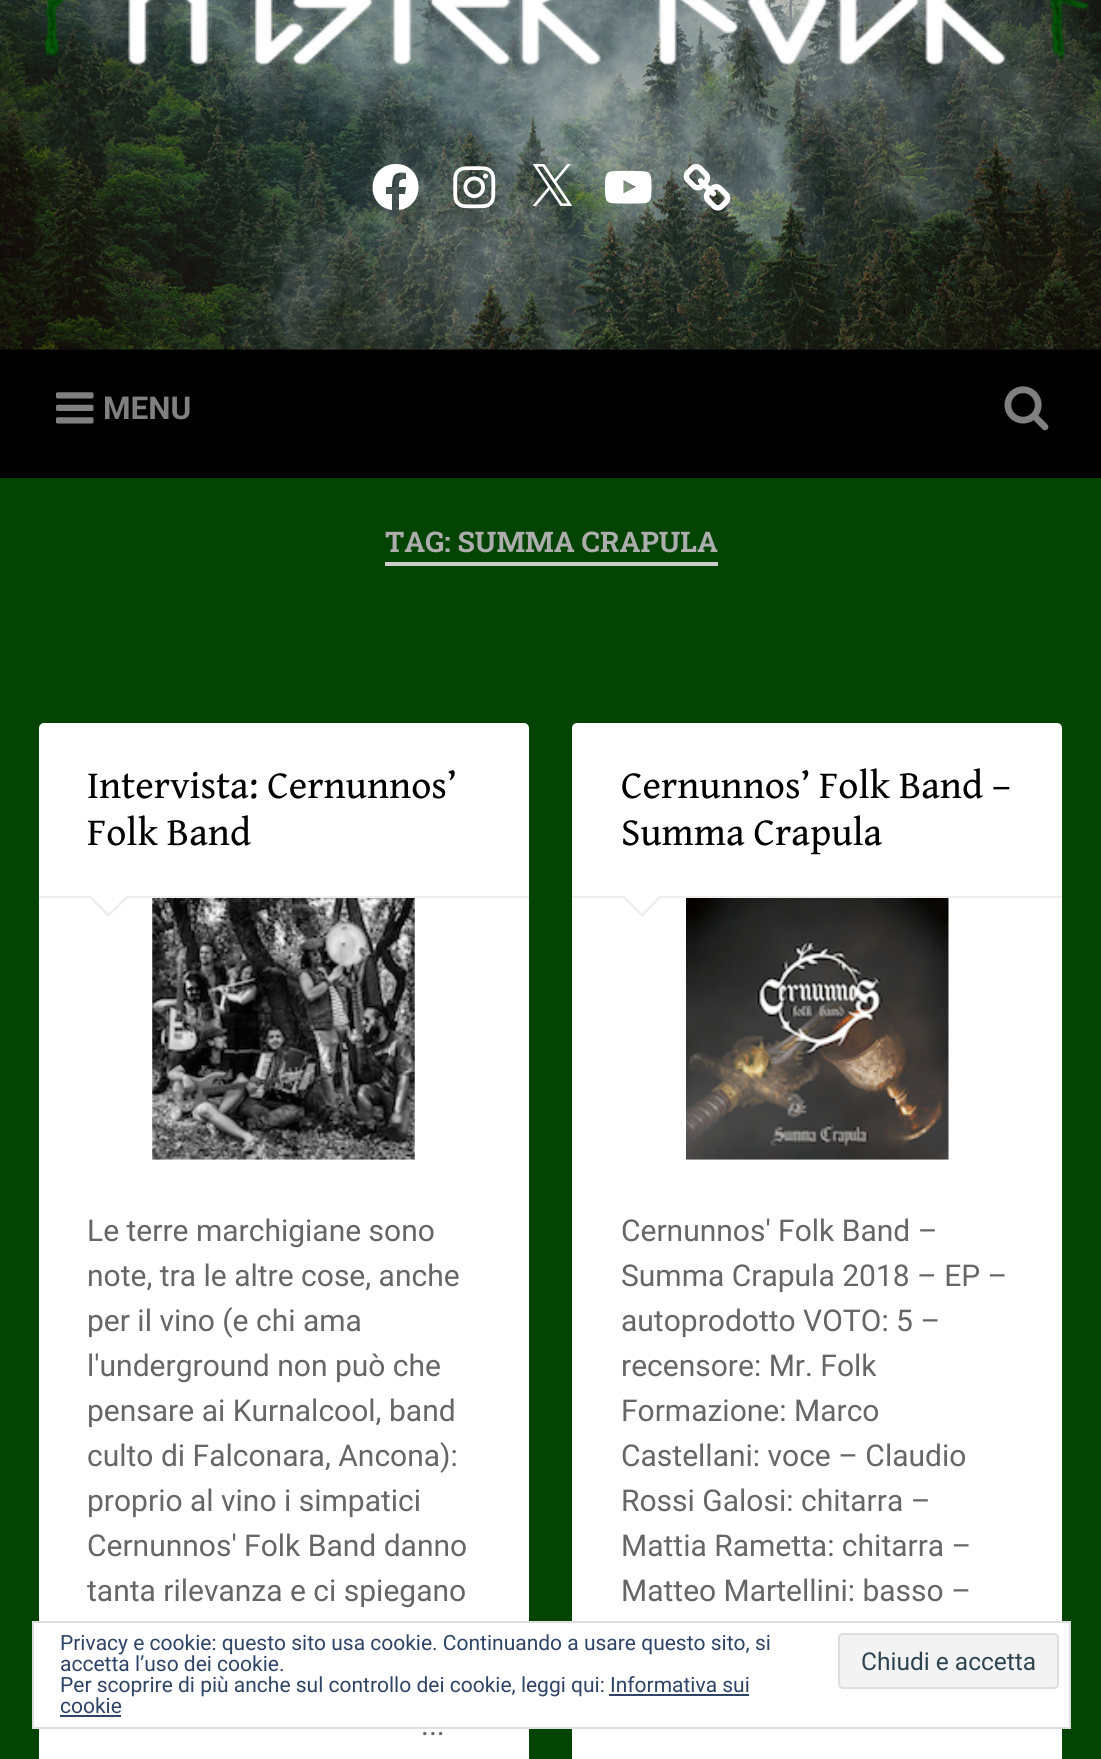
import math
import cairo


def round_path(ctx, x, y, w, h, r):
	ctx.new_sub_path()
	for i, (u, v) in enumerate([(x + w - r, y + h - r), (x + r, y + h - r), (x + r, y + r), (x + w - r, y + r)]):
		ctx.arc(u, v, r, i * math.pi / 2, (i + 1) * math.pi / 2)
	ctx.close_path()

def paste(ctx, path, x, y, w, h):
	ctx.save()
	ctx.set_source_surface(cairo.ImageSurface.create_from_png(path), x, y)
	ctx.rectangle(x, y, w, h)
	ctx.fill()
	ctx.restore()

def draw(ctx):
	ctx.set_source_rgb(0.012, 0.267, 0.012)
	ctx.paint()
	ctx.set_source_rgb(0.027, 0.027, 0.027)
	ctx.rectangle(0, 349, 1101, 1)
	ctx.fill()
	paste(ctx, 'media/1.png', 0, 0, 1101, 350)
	paste(ctx, 'media/2.png', 44, 0, 1045, 67)
	ctx.set_source_rgb(1, 1, 1)
	ctx.new_path()
	ctx.move_to(396, 164)
	ctx.curve_to(367, 164, 364, 206, 392, 210)
	ctx.line_to(392, 194)
	ctx.line_to(386, 194)
	ctx.line_to(386, 187)
	ctx.line_to(392, 187)
	ctx.curve_to(392, 176, 394, 171, 406, 173)
	ctx.line_to(406, 179)
	ctx.curve_to(399, 179, 399, 181, 399, 187)
	ctx.line_to(406, 187)
	ctx.line_to(405, 194)
	ctx.line_to(399, 194)
	ctx.line_to(399, 210)
	ctx.curve_to(427, 206, 424, 164, 396, 164)
	ctx.close_path()
	ctx.fill()
	paste(ctx, 'media/3.png', 453, 166, 43, 43)
	paste(ctx, 'media/4.png', 532, 163, 41, 43)
	paste(ctx, 'media/5.png', 604, 170, 48, 34)
	paste(ctx, 'media/6.png', 683, 163, 48, 48)
	ctx.set_source_rgb(0, 0, 0)
	ctx.rectangle(0, 350, 1101, 128)
	ctx.fill()
	paste(ctx, 'media/7.png', 56, 392, 38, 32)
	ctx.select_font_face('Roboto', cairo.FONT_SLANT_NORMAL, cairo.FONT_WEIGHT_BOLD)
	ctx.set_font_size(31.5)
	ctx.set_source_rgb(0.502, 0.502, 0.502)
	ctx.move_to(103, 419)
	ctx.show_text('MENU')
	paste(ctx, 'media/8.png', 1004, 386, 45, 45)
	ctx.set_source_rgb(0.8, 0.8, 0.8)
	ctx.rectangle(385, 562, 333, 4)
	ctx.fill()
	ctx.select_font_face('Roboto Slab', cairo.FONT_SLANT_NORMAL, cairo.FONT_WEIGHT_BOLD)
	ctx.set_font_size(28.4)
	ctx.set_source_rgb(0.678, 0.678, 0.678)
	ctx.move_to(385, 552)
	ctx.show_text('TAG: SUMMA CRAPULA')
	ctx.set_source_rgb(1, 1, 1)
	round_path(ctx, 39, 723, 490, 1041, 5)
	ctx.fill()
	ctx.set_source_rgb(0.933, 0.933, 0.933)
	ctx.rectangle(39, 896, 490, 2)
	ctx.fill()
	ctx.select_font_face('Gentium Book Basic')
	ctx.set_font_size(39.4)
	ctx.set_source_rgb(0, 0, 0)
	ctx.move_to(87, 798)
	ctx.show_text('Intervista: Cernunnos’')
	ctx.move_to(87, 845)
	ctx.show_text('Folk Band')
	ctx.set_source_rgb(0.933, 0.933, 0.933)
	ctx.new_path()
	ctx.move_to(88, 896)
	ctx.line_to(130, 896)
	ctx.line_to(108, 917)
	ctx.close_path()
	ctx.fill()
	ctx.set_source_rgb(1, 1, 1)
	ctx.new_path()
	ctx.move_to(89, 894)
	ctx.line_to(128, 894)
	ctx.line_to(108.5, 913.5)
	ctx.close_path()
	ctx.fill()
	paste(ctx, 'media/9.png', 152, 898, 263, 262)
	ctx.select_font_face('Roboto')
	ctx.set_font_size(30)
	ctx.set_source_rgb(0.4, 0.4, 0.4)
	for x, y, s in [
		(87, 1241, 'Le terre marchigiane sono'),
		(87, 1286, 'note, tra le altre cose, anche'),
		(87, 1331, 'per il vino (e chi ama'),
		(87, 1376, 'l\'underground non può che'),
		(87, 1421, 'pensare ai Kurnalcool, band'),
		(87, 1466, 'culto di Falconara, Ancona):'),
		(87, 1511, 'proprio al vino i simpatici'),
		(87, 1556, 'Cernunnos\' Folk Band danno'),
		(87, 1601, 'tanta rilevanza e ci spiegano'),
		(421, 1735, '...'),
	]:
		ctx.move_to(x, y)
		ctx.show_text(s)
	ctx.set_source_rgb(1, 1, 1)
	round_path(ctx, 572, 723, 490, 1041, 5)
	ctx.fill()
	ctx.set_source_rgb(0.933, 0.933, 0.933)
	ctx.rectangle(572, 896, 490, 2)
	ctx.fill()
	ctx.select_font_face('Gentium Book Basic')
	ctx.set_font_size(39.4)
	ctx.set_source_rgb(0, 0, 0)
	ctx.move_to(621, 798)
	ctx.show_text('Cernunnos’ Folk Band –')
	ctx.move_to(621, 845)
	ctx.show_text('Summa Crapula')
	ctx.set_source_rgb(0.933, 0.933, 0.933)
	ctx.new_path()
	ctx.move_to(621, 896)
	ctx.line_to(663, 896)
	ctx.line_to(642, 917)
	ctx.close_path()
	ctx.fill()
	ctx.set_source_rgb(1, 1, 1)
	ctx.new_path()
	ctx.move_to(623, 894)
	ctx.line_to(661.5, 894)
	ctx.line_to(642, 913.5)
	ctx.close_path()
	ctx.fill()
	paste(ctx, 'media/10.png', 686, 898, 263, 262)
	ctx.select_font_face('Roboto')
	ctx.set_font_size(30)
	ctx.set_source_rgb(0.4, 0.4, 0.4)
	for x, y, s in [
		(621, 1241, 'Cernunnos\' Folk Band –'),
		(621, 1286, 'Summa Crapula 2018 – EP –'),
		(621, 1331, 'autoprodotto VOTO: 5 –'),
		(621, 1376, 'recensore: Mr. Folk'),
		(621, 1421, 'Formazione: Marco'),
		(621, 1466, 'Castellani: voce – Claudio'),
		(621, 1511, 'Rossi Galosi: chitarra –'),
		(621, 1556, 'Mattia Rametta: chitarra –'),
		(621, 1601, 'Matteo Martellini: basso –'),
	]:
		ctx.move_to(x, y)
		ctx.show_text(s)
	ctx.set_source_rgb(1, 1, 1)
	ctx.rectangle(33, 1622, 1037, 106)
	ctx.fill_preserve()
	ctx.set_source_rgb(0.871, 0.871, 0.871)
	ctx.stroke()
	ctx.set_font_size(21)
	ctx.set_source_rgb(0.18, 0.267, 0.404)
	ctx.move_to(60, 1650)
	ctx.show_text('Privacy e cookie: questo sito usa cookie. Continuando a usare questo sito, si')
	ctx.move_to(60, 1671)
	ctx.show_text('accetta l’uso dei cookie.')
	ctx.set_source_rgb(0.953, 0.953, 0.953)
	round_path(ctx, 839, 1634, 219, 54, 4)
	ctx.fill_preserve()
	ctx.set_source_rgb(0.871, 0.871, 0.871)
	ctx.stroke()
	ctx.set_font_size(24.5)
	ctx.set_source_rgb(0.18, 0.267, 0.325)
	ctx.move_to(861, 1670)
	ctx.show_text('Chiudi e accetta')
	ctx.set_font_size(21)
	ctx.set_source_rgb(0.18, 0.267, 0.404)
	ctx.move_to(60, 1692)
	ctx.show_text('Per scoprire di più anche sul controllo dei cookie, leggi qui: Informativa sui')
	ctx.move_to(60, 1713)
	ctx.show_text('cookie')
	ctx.rectangle(609, 1694, 140, 2)
	ctx.fill()
	ctx.rectangle(60, 1715, 61, 2)
	ctx.fill()


surface = cairo.ImageSurface(cairo.FORMAT_RGB24, 1101, 1759)
ctx = cairo.Context(surface)
options = cairo.FontOptions()
options.set_hint_metrics(cairo.HINT_METRICS_OFF)
options.set_hint_style(cairo.HINT_STYLE_NONE)
ctx.set_font_options(options)
ctx.set_miter_limit(4)
draw(ctx)
surface.write_to_png('image.png')
